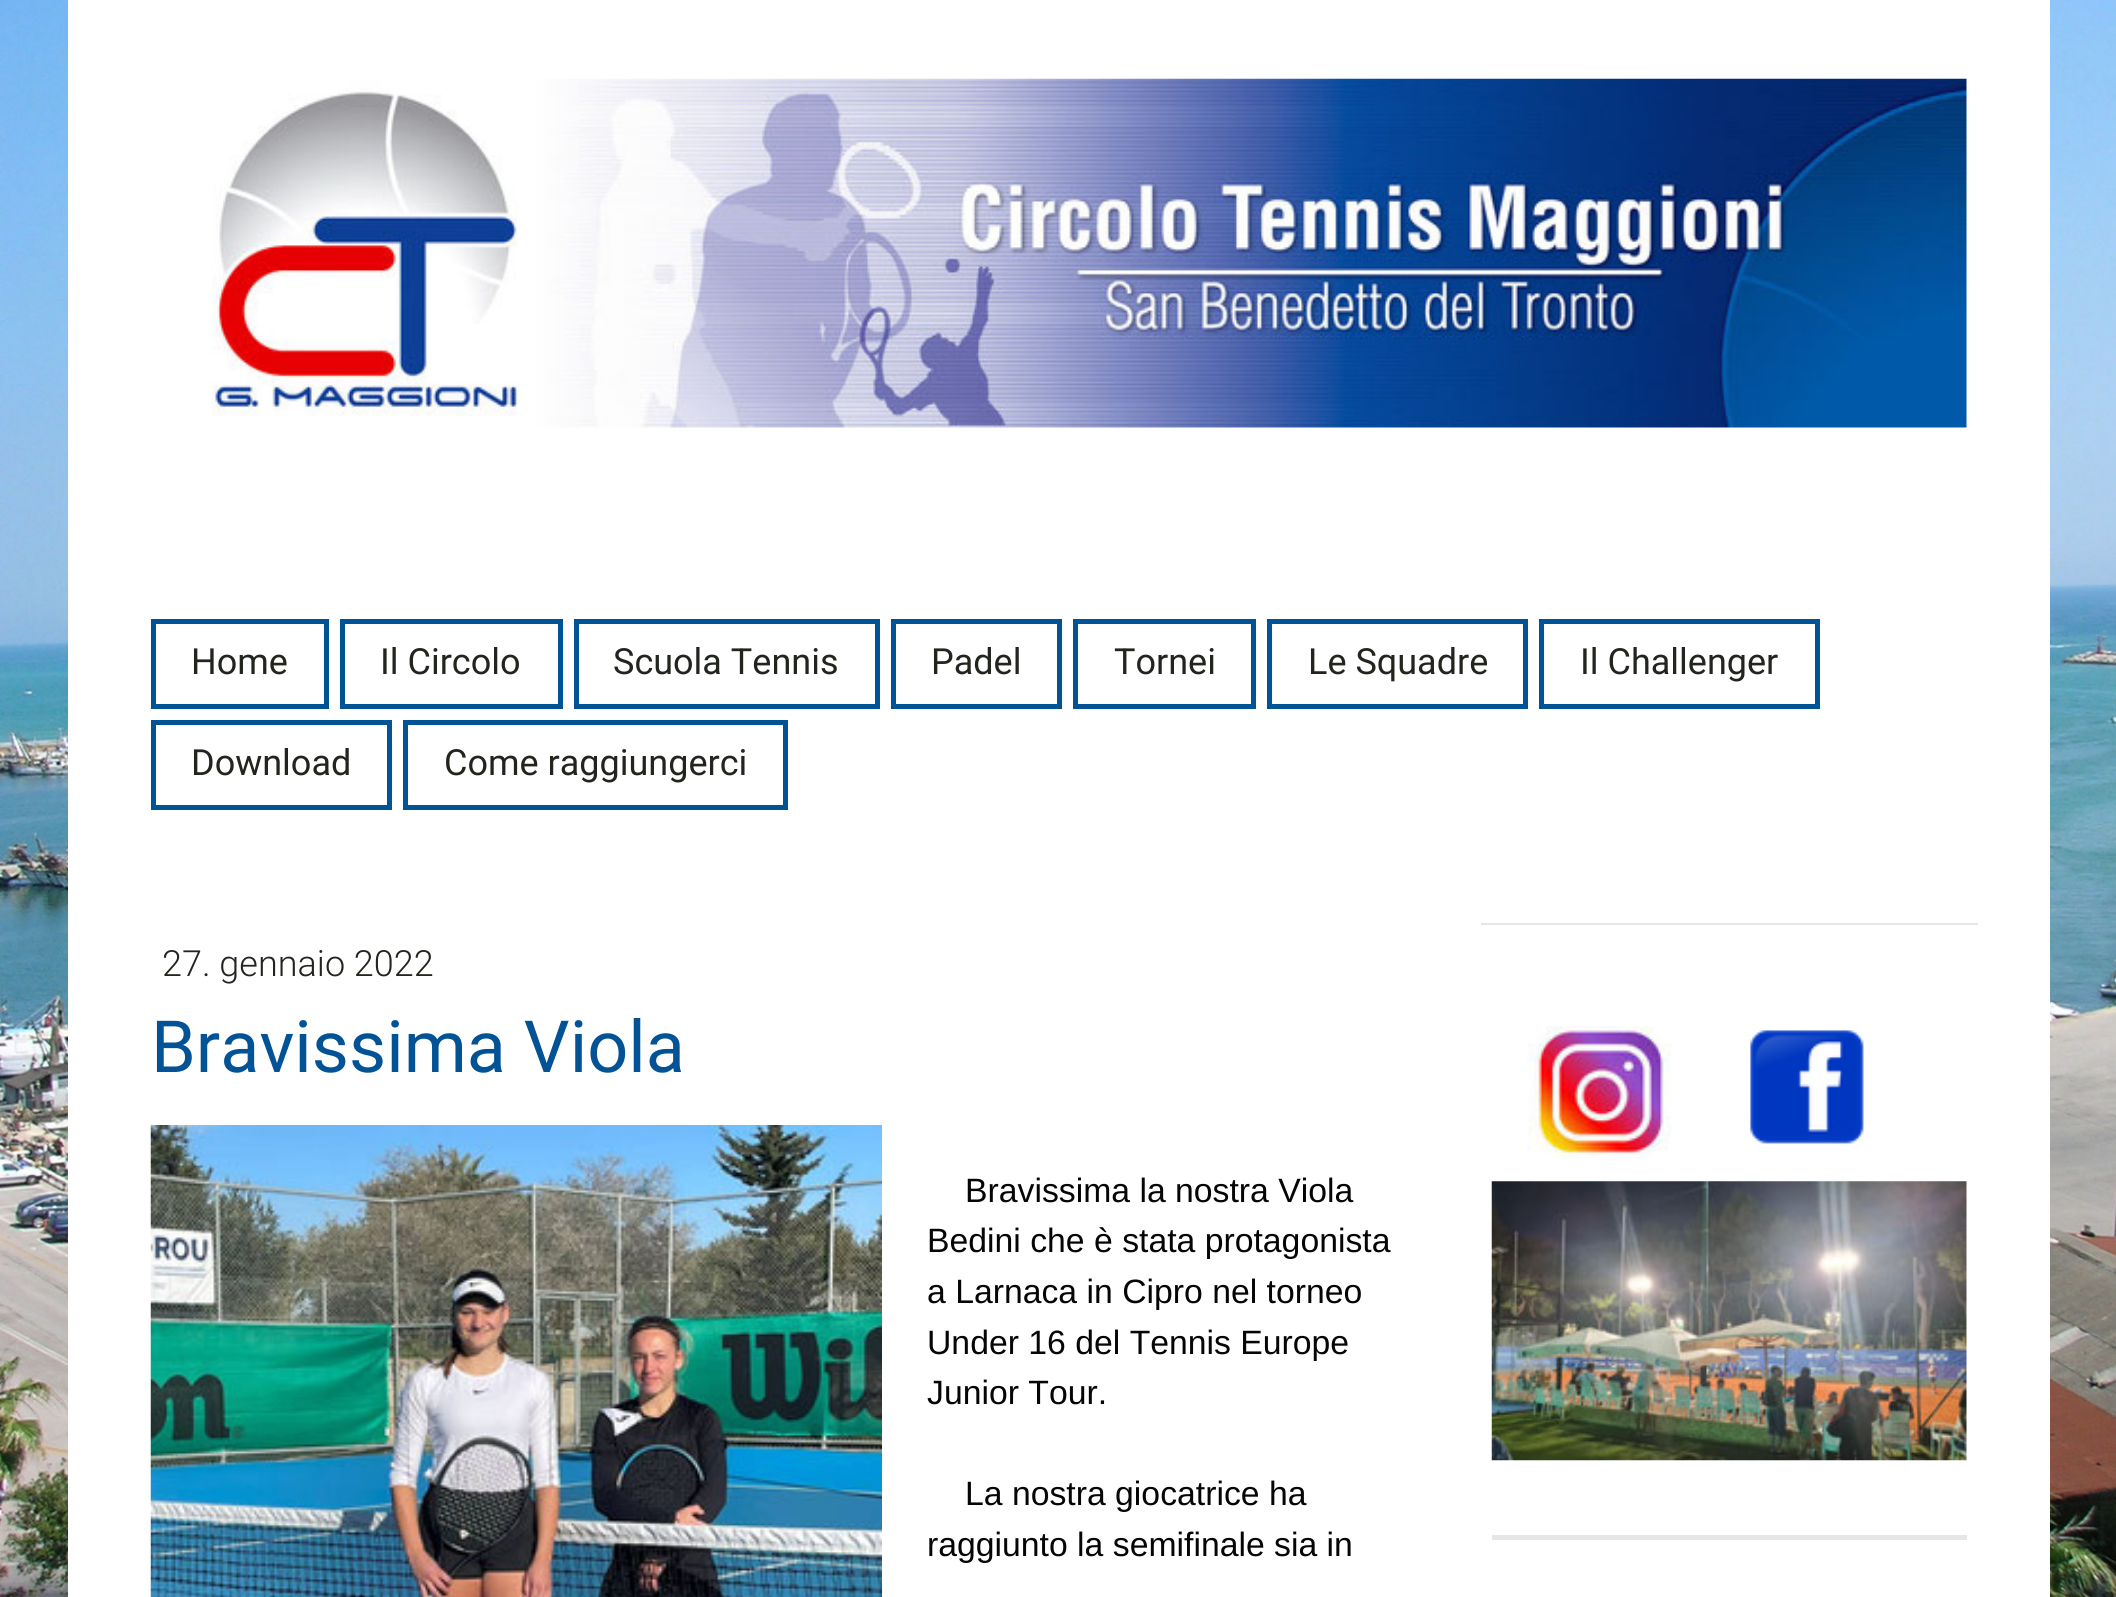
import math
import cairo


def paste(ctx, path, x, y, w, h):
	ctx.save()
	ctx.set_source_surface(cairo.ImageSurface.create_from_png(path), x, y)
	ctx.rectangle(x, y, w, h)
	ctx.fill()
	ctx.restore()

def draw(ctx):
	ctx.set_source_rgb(1, 1, 1)
	ctx.paint()
	paste(ctx, 'media/1.png', 0, 0, 2116, 1597)
	ctx.set_source_rgb(1, 1, 1)
	ctx.rectangle(68, 0, 1982, 1597)
	ctx.fill()
	paste(ctx, 'media/2.png', 211, 78, 1756, 350)
	ctx.rectangle(153.5, 621.5, 173, 85)
	ctx.set_source_rgb(0.008, 0.322, 0.588)
	ctx.set_line_width(5)
	ctx.stroke()
	ctx.select_font_face('Roboto')
	ctx.set_font_size(36)
	ctx.set_source_rgb(0.133, 0.145, 0.118)
	ctx.move_to(191, 674)
	ctx.show_text('Home')
	ctx.rectangle(342.5, 621.5, 218, 85)
	ctx.set_source_rgb(0.008, 0.322, 0.588)
	ctx.stroke()
	ctx.set_source_rgb(0.133, 0.145, 0.118)
	ctx.move_to(380, 674)
	ctx.show_text('Il Circolo')
	ctx.rectangle(576.5, 621.5, 301, 85)
	ctx.set_source_rgb(0.008, 0.322, 0.588)
	ctx.stroke()
	ctx.set_source_rgb(0.133, 0.145, 0.118)
	ctx.move_to(613, 674)
	ctx.show_text('Scuola Tennis')
	ctx.rectangle(893.5, 621.5, 166, 85)
	ctx.set_source_rgb(0.008, 0.322, 0.588)
	ctx.stroke()
	ctx.set_source_rgb(0.133, 0.145, 0.118)
	ctx.move_to(931, 674)
	ctx.show_text('Padel')
	ctx.rectangle(1075.5, 621.5, 178, 85)
	ctx.set_source_rgb(0.008, 0.322, 0.588)
	ctx.stroke()
	ctx.set_source_rgb(0.133, 0.145, 0.118)
	ctx.move_to(1114, 674)
	ctx.show_text('Tornei')
	ctx.rectangle(1269.5, 621.5, 256, 85)
	ctx.set_source_rgb(0.008, 0.322, 0.588)
	ctx.stroke()
	ctx.set_source_rgb(0.133, 0.145, 0.118)
	ctx.move_to(1308, 674)
	ctx.show_text('Le Squadre')
	ctx.rectangle(1541.5, 621.5, 276, 85)
	ctx.set_source_rgb(0.008, 0.322, 0.588)
	ctx.stroke()
	ctx.set_source_rgb(0.133, 0.145, 0.118)
	ctx.move_to(1580, 674)
	ctx.show_text('Il Challenger')
	ctx.rectangle(153.5, 722.5, 236, 85)
	ctx.set_source_rgb(0.008, 0.322, 0.588)
	ctx.stroke()
	ctx.set_source_rgb(0.133, 0.145, 0.118)
	ctx.move_to(191, 775)
	ctx.show_text('Download')
	ctx.rectangle(405.5, 722.5, 380, 85)
	ctx.set_source_rgb(0.008, 0.322, 0.588)
	ctx.stroke()
	ctx.set_source_rgb(0.133, 0.145, 0.118)
	ctx.move_to(444, 775)
	ctx.show_text('Come raggiungerci')
	ctx.select_font_face('Roboto Light')
	ctx.move_to(162, 976)
	ctx.show_text('27. gennaio 2022')
	ctx.select_font_face('Roboto')
	ctx.set_font_size(72)
	ctx.set_source_rgb(0.008, 0.322, 0.588)
	ctx.move_to(151, 1072)
	ctx.show_text('Bravissima Viola')
	paste(ctx, 'media/3.png', 150, 1125, 732, 472)
	ctx.select_font_face('Liberation Sans')
	ctx.set_font_size(33.75)
	ctx.set_source_rgb(0.02, 0.02, 0.02)
	for x, y, s in [
		(965, 1202, 'Bravissima la nostra Viola'),
		(927, 1252, 'Bedini che è stata protagonista'),
		(927, 1303, 'a Larnaca in Cipro nel torneo'),
		(927, 1354, 'Under 16 del Tennis Europe'),
		(927, 1404, 'Junior Tour.'),
		(965, 1505, 'La nostra giocatrice ha'),
		(927, 1556, 'raggiunto la semifinale sia in'),
	]:
		ctx.move_to(x, y)
		ctx.show_text(s)
	ctx.set_source_rgb(0.902, 0.906, 0.894)
	ctx.rectangle(1481, 923, 497, 2)
	ctx.fill()
	paste(ctx, 'media/4.png', 1527, 1026, 146, 133)
	paste(ctx, 'media/5.png', 1750, 1030, 114, 114)
	paste(ctx, 'media/6.png', 1491, 1181, 476, 280)
	ctx.rectangle(1492, 1535, 475, 5)
	ctx.fill()


surface = cairo.ImageSurface(cairo.FORMAT_RGB24, 2116, 1597)
ctx = cairo.Context(surface)
options = cairo.FontOptions()
options.set_hint_metrics(cairo.HINT_METRICS_OFF)
options.set_hint_style(cairo.HINT_STYLE_NONE)
ctx.set_font_options(options)
ctx.set_miter_limit(4)
draw(ctx)
surface.write_to_png('image.png')
